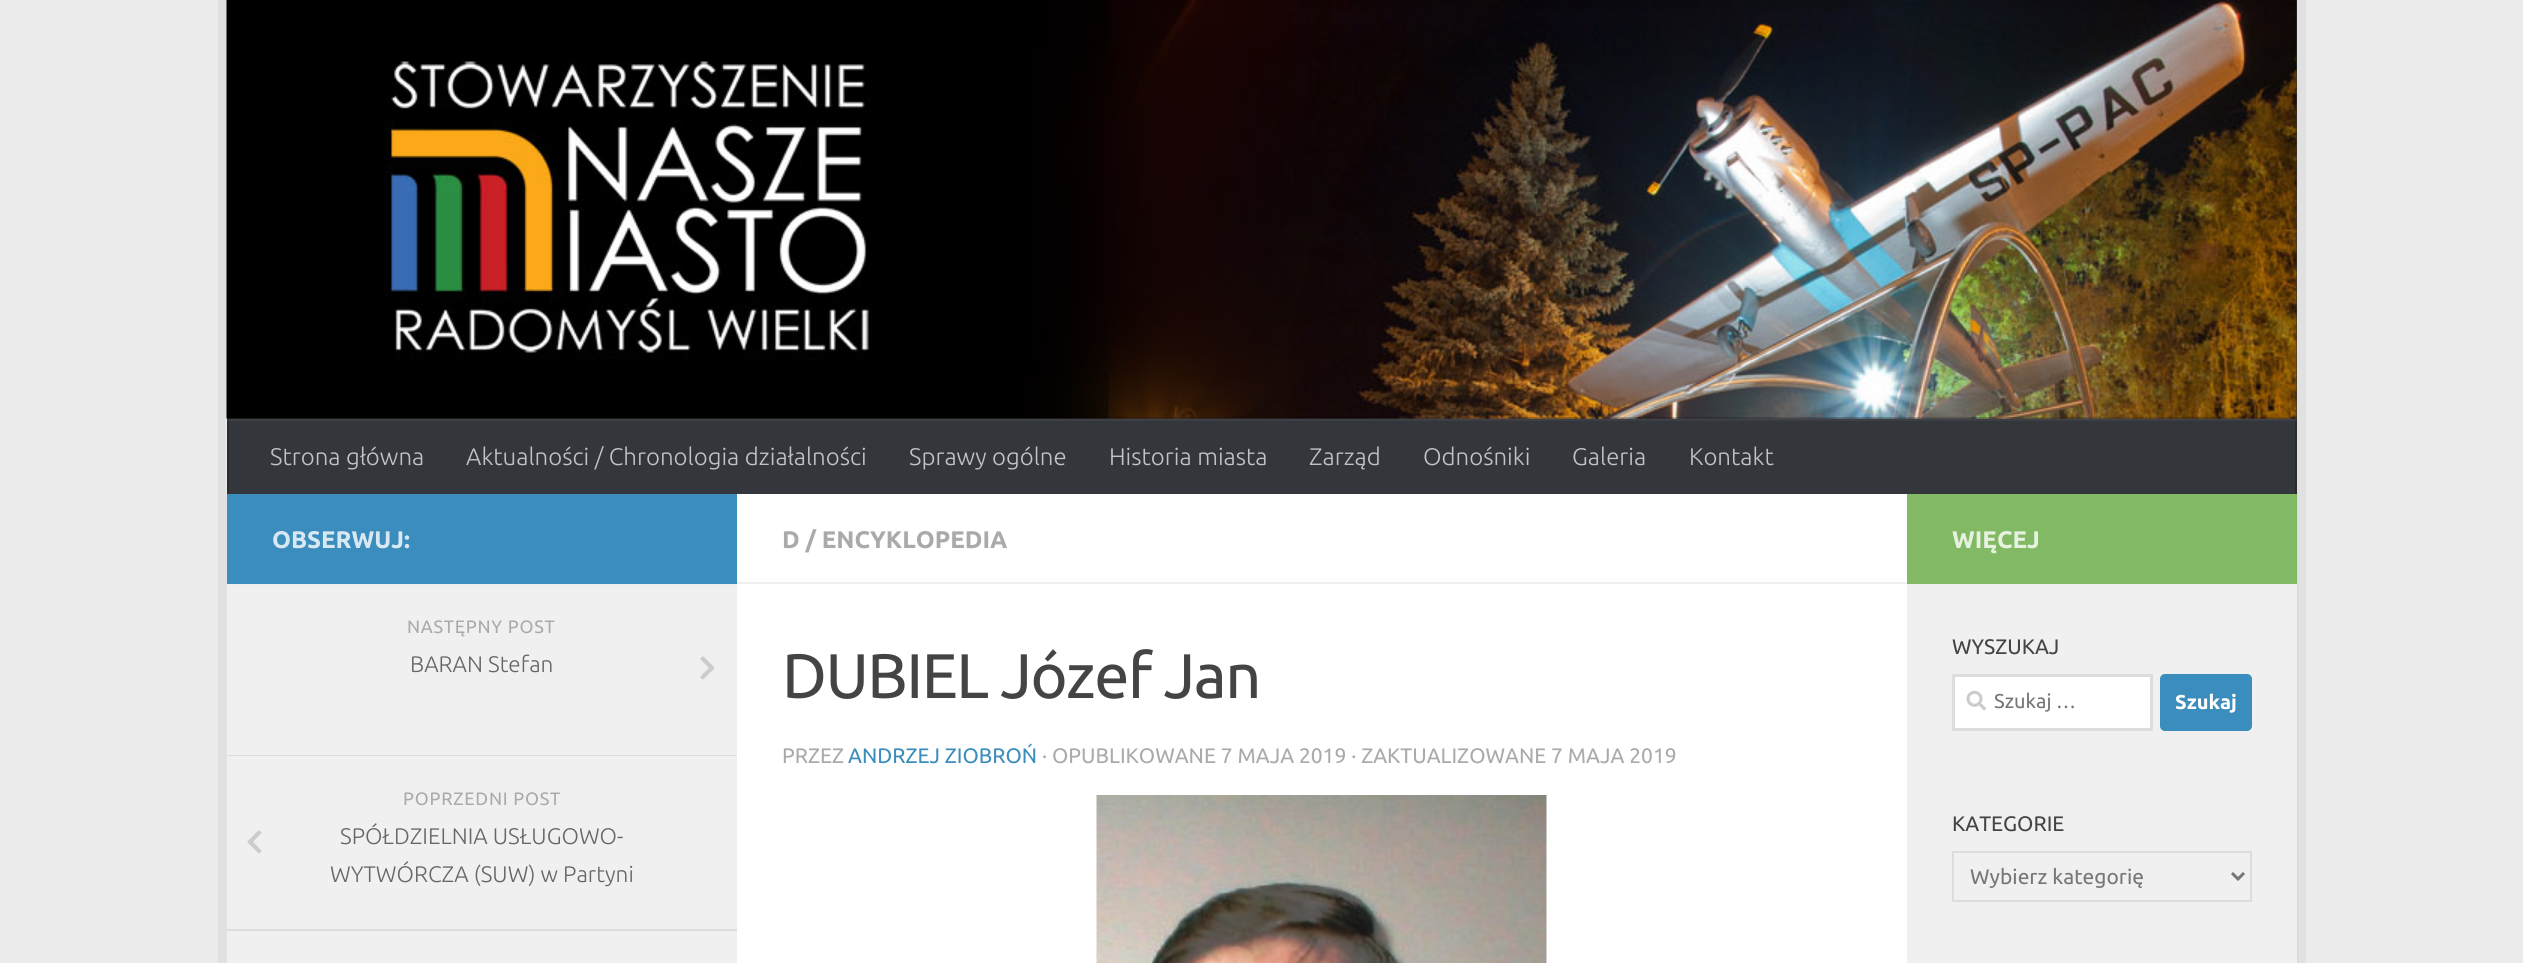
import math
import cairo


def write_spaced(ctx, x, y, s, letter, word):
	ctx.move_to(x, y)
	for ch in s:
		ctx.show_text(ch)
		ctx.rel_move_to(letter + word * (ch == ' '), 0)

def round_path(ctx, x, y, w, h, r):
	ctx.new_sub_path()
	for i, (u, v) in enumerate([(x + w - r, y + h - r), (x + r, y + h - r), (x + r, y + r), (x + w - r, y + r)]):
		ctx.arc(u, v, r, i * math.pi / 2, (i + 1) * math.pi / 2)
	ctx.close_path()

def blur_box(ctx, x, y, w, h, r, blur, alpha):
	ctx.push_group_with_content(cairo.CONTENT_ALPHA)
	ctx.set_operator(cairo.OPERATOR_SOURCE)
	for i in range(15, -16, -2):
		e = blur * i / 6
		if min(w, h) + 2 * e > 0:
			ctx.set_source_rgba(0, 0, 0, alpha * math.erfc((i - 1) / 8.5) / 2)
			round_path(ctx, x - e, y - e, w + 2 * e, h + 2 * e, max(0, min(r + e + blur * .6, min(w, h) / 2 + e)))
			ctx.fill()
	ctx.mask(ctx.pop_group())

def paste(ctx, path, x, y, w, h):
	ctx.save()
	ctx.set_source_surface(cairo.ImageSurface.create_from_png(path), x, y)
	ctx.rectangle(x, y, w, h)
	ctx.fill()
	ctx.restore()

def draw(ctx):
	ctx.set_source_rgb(0.918, 0.918, 0.918)
	ctx.paint()
	ctx.set_source_rgb(0.882, 0.882, 0.882)
	ctx.rectangle(218, 0, 8, 963)
	ctx.rectangle(2297, 0, 9, 963)
	ctx.fill()
	ctx.set_source_rgb(0.2, 0.212, 0.231)
	ctx.rectangle(227, 0, 2070, 419)
	ctx.fill()
	paste(ctx, 'media/1.png', 226, 0, 2071, 419)
	ctx.set_source_rgb(0, 0, 0)
	blur_box(ctx, 227, 495, 2070, 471, 0, 1, 0.1)
	ctx.set_source_rgba(0, 0, 0, 0.2)
	ctx.new_path()
	ctx.move_to(227, 417)
	ctx.line_to(227, 418)
	ctx.line_to(2296, 418)
	ctx.line_to(2296, 492)
	ctx.line_to(2297, 492)
	ctx.line_to(2297, 417)
	ctx.close_path()
	ctx.fill()
	ctx.set_source_rgb(0.2, 0.212, 0.231)
	ctx.rectangle(229, 419, 2066, 75)
	ctx.fill()
	ctx.set_source_rgb(0.161, 0.169, 0.184)
	ctx.rectangle(2295, 419, 2, 75)
	ctx.rectangle(227, 419, 2, 75)
	ctx.fill()
	ctx.set_source_rgba(1, 1, 1, 0.05)
	ctx.rectangle(227, 419, 2070, 2)
	ctx.fill()
	ctx.select_font_face('Ubuntu Light')
	ctx.set_font_size(24)
	ctx.set_source_rgb(0.761, 0.765, 0.769)
	for x, y, s in [
		(270, 465, 'Strona główna'),
		(466, 465, 'Aktualności / Chronologia działalności'),
		(909, 465, 'Sprawy ogólne'),
		(1109, 465, 'Historia miasta'),
		(1309, 465, 'Zarząd'),
		(1423, 465, 'Odnośniki'),
		(1572, 465, 'Galeria'),
		(1689, 465, 'Kontakt'),
	]:
		ctx.move_to(x, y)
		ctx.show_text(s)
	ctx.set_source_rgb(1, 1, 1)
	ctx.rectangle(737, 494, 1170, 469)
	ctx.fill()
	ctx.set_source_rgb(0.231, 0.553, 0.741)
	ctx.rectangle(227, 494, 510, 90)
	ctx.fill()
	ctx.select_font_face('Ubuntu', cairo.FONT_SLANT_NORMAL, cairo.FONT_WEIGHT_BOLD)
	ctx.set_source_rgb(0.847, 0.91, 0.949)
	ctx.move_to(272, 548)
	ctx.show_text('OBSERWUJ:')
	ctx.set_source_rgb(0.933, 0.933, 0.933)
	ctx.rectangle(227, 584, 510, 2)
	ctx.fill()
	ctx.set_source_rgb(0.941, 0.941, 0.941)
	ctx.rectangle(227, 586, 510, 377)
	ctx.fill()
	ctx.set_source_rgb(0.867, 0.867, 0.867)
	ctx.rectangle(227, 755, 510, 1)
	ctx.fill()
	ctx.select_font_face('Ubuntu')
	ctx.set_font_size(18)
	ctx.set_source_rgb(0.667, 0.667, 0.667)
	write_spaced(ctx, 407, 633, 'NASTĘPNY POST', 0.75, 0)
	ctx.select_font_face('Ubuntu Light')
	ctx.set_font_size(22.5)
	ctx.set_source_rgb(0.4, 0.4, 0.4)
	ctx.move_to(410, 672)
	ctx.show_text('BARAN Stefan')
	paste(ctx, 'media/2.png', 700, 656, 15, 24)
	ctx.set_source_rgb(0.867, 0.867, 0.867)
	ctx.rectangle(227, 929, 510, 2)
	ctx.fill()
	ctx.select_font_face('Ubuntu')
	ctx.set_font_size(18)
	ctx.set_source_rgb(0.667, 0.667, 0.667)
	write_spaced(ctx, 403, 805, 'POPRZEDNI POST', 0.75, 0)
	paste(ctx, 'media/3.png', 247, 830, 15, 24)
	ctx.select_font_face('Ubuntu Light')
	ctx.set_font_size(22.5)
	ctx.set_source_rgb(0.4, 0.4, 0.4)
	ctx.move_to(340, 844)
	ctx.show_text('SPÓŁDZIELNIA USŁUGOWO-')
	ctx.move_to(330, 882)
	ctx.show_text('WYTWÓRCZA (SUW) w Partyni')
	ctx.set_source_rgb(0.933, 0.933, 0.933)
	ctx.rectangle(737, 582, 1170, 2)
	ctx.fill()
	ctx.select_font_face('Ubuntu', cairo.FONT_SLANT_NORMAL, cairo.FONT_WEIGHT_BOLD)
	ctx.set_font_size(24)
	ctx.set_source_rgb(0.667, 0.667, 0.667)
	ctx.move_to(782, 548)
	ctx.show_text('D / ENCYKLOPEDIA')
	ctx.select_font_face('Ubuntu')
	ctx.set_font_size(63)
	ctx.set_source_rgb(0.267, 0.267, 0.267)
	write_spaced(ctx, 782, 698, 'DUBIEL Józef Jan', -1.5, 0)
	ctx.set_font_size(21)
	ctx.set_source_rgb(0.667, 0.667, 0.667)
	ctx.move_to(782, 763)
	ctx.show_text('PRZEZ')
	ctx.set_source_rgb(0.231, 0.553, 0.741)
	ctx.move_to(848, 763)
	ctx.show_text('ANDRZEJ ZIOBROŃ')
	ctx.set_source_rgb(0.667, 0.667, 0.667)
	ctx.move_to(1042, 763)
	ctx.show_text('· OPUBLIKOWANE 7 MAJA 2019 · ZAKTUALIZOWANE 7 MAJA 2019')
	paste(ctx, 'media/4.png', 1096, 795, 451, 168)
	ctx.set_source_rgb(0.51, 0.725, 0.396)
	ctx.rectangle(1907, 494, 390, 90)
	ctx.fill()
	ctx.select_font_face('Ubuntu', cairo.FONT_SLANT_NORMAL, cairo.FONT_WEIGHT_BOLD)
	ctx.set_font_size(24)
	ctx.set_source_rgb(0.902, 0.945, 0.878)
	ctx.move_to(1952, 548)
	ctx.show_text('WIĘCEJ')
	ctx.set_source_rgb(0.941, 0.941, 0.941)
	ctx.rectangle(1907, 584, 390, 379)
	ctx.fill()
	ctx.select_font_face('Ubuntu')
	ctx.set_font_size(21)
	ctx.set_source_rgb(0.267, 0.267, 0.267)
	ctx.move_to(1952, 654)
	ctx.show_text('WYSZUKAJ')
	ctx.set_source_rgb(1, 1, 1)
	ctx.rectangle(1953.5, 675.5, 198, 54)
	ctx.fill_preserve()
	ctx.set_source_rgb(0.867, 0.867, 0.867)
	ctx.set_line_width(3)
	ctx.stroke()
	paste(ctx, 'media/5.png', 1966, 690, 21, 21)
	ctx.set_font_size(20)
	ctx.set_source_rgb(0.467, 0.467, 0.467)
	ctx.move_to(1994, 708)
	ctx.show_text('Szukaj …')
	ctx.set_source_rgb(0.231, 0.553, 0.741)
	round_path(ctx, 2160, 674, 92, 57, 5)
	ctx.fill()
	ctx.select_font_face('Ubuntu', cairo.FONT_SLANT_NORMAL, cairo.FONT_WEIGHT_BOLD)
	ctx.set_source_rgb(1, 1, 1)
	ctx.move_to(2175, 709)
	ctx.show_text('Szukaj')
	ctx.select_font_face('Ubuntu')
	ctx.set_font_size(21)
	ctx.set_source_rgb(0.267, 0.267, 0.267)
	ctx.move_to(1952, 831)
	ctx.show_text('KATEGORIE')
	ctx.rectangle(1953, 852, 298, 49)
	ctx.set_source_rgb(0.867, 0.867, 0.867)
	ctx.set_line_width(2)
	ctx.stroke()
	ctx.new_path()
	ctx.move_to(2232, 873)
	ctx.line_to(2238, 879)
	ctx.line_to(2244, 873)
	ctx.set_source_rgb(0.467, 0.467, 0.467)
	ctx.set_line_width(3)
	ctx.stroke()
	ctx.move_to(1970, 884)
	ctx.show_text('Wybierz kategorię')


surface = cairo.ImageSurface(cairo.FORMAT_RGB24, 2523, 963)
ctx = cairo.Context(surface)
options = cairo.FontOptions()
options.set_hint_metrics(cairo.HINT_METRICS_OFF)
options.set_hint_style(cairo.HINT_STYLE_NONE)
ctx.set_font_options(options)
ctx.set_miter_limit(4)
draw(ctx)
surface.write_to_png('image.png')
